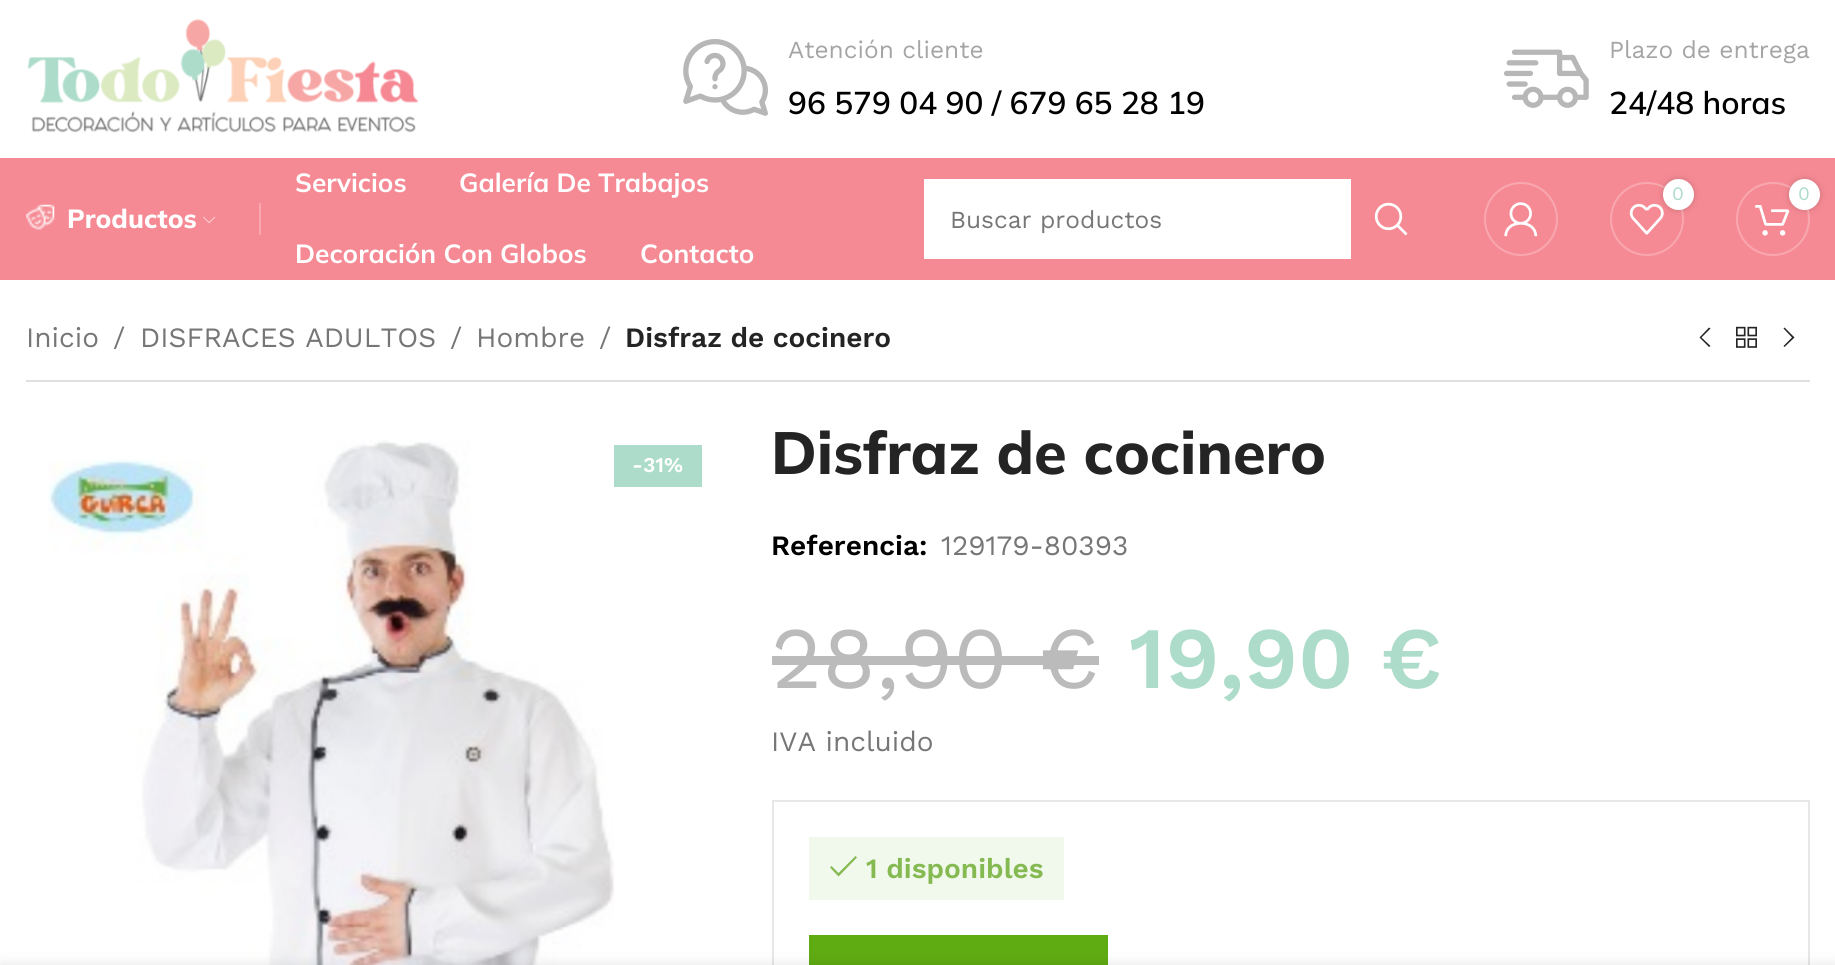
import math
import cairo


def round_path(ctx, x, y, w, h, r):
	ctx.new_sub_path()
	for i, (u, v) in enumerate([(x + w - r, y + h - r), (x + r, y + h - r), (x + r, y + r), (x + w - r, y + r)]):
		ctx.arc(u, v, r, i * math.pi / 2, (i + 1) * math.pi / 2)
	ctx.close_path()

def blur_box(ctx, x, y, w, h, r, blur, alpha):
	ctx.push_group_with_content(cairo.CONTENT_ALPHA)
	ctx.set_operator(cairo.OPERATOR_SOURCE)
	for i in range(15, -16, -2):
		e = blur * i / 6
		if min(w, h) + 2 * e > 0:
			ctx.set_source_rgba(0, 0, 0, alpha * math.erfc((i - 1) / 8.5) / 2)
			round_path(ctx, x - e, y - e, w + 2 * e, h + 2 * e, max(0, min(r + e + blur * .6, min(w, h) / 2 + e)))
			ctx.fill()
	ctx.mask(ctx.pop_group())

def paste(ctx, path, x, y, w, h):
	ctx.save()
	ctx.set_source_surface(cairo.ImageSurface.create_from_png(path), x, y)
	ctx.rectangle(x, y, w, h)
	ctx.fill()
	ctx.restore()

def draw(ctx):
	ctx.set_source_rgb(1, 1, 1)
	ctx.paint()
	paste(ctx, 'media/1.png', 27, 18, 392, 115)
	paste(ctx, 'media/2.png', 683, 39, 85, 77)
	ctx.select_font_face('Work Sans')
	ctx.set_font_size(24.5)
	ctx.set_source_rgb(0.647, 0.647, 0.647)
	ctx.move_to(788, 58)
	ctx.show_text('Atención cliente')
	ctx.select_font_face('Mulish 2 ExtraLight')
	ctx.set_font_size(31.5)
	ctx.set_source_rgb(0, 0, 0)
	ctx.move_to(788, 114)
	ctx.show_text('96 579 04 90 / 679 65 28 19')
	paste(ctx, 'media/3.png', 1504, 49, 85, 59)
	ctx.select_font_face('Work Sans')
	ctx.set_font_size(24.5)
	ctx.set_source_rgb(0.647, 0.647, 0.647)
	ctx.move_to(1609, 58)
	ctx.show_text('Plazo de entrega')
	ctx.select_font_face('Mulish 2 ExtraLight')
	ctx.set_font_size(31.5)
	ctx.set_source_rgb(0, 0, 0)
	ctx.move_to(1609, 114)
	ctx.show_text('24/48 horas')
	ctx.set_source_rgb(0.961, 0.541, 0.58)
	ctx.rectangle(0, 158, 1835, 122)
	ctx.fill()
	paste(ctx, 'media/4.png', 26, 204, 29, 26)
	ctx.select_font_face('Mulish ExtraLight')
	ctx.set_font_size(26.25)
	ctx.set_source_rgb(1, 1, 1)
	ctx.move_to(67, 228)
	ctx.show_text('Productos')
	paste(ctx, 'media/5.png', 203, 216, 13, 8)
	ctx.set_source_rgb(0.973, 0.655, 0.686)
	ctx.rectangle(259, 203, 2, 32)
	ctx.fill()
	ctx.select_font_face('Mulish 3 ExtraLight')
	ctx.set_source_rgb(1, 1, 1)
	for x, y, s in [
		(295, 192, 'Servicios'),
		(459, 192, 'Galería De Trabajos'),
		(295, 263, 'Decoración Con Globos'),
		(640, 263, 'Contacto'),
	]:
		ctx.move_to(x, y)
		ctx.show_text(s)
	ctx.new_path()
	ctx.arc(1521, 219, 36, 0, 2 * math.pi)
	ctx.set_source_rgb(0.973, 0.655, 0.686)
	ctx.stroke()
	paste(ctx, 'media/6.png', 1504, 202, 34, 35)
	ctx.arc(1647, 219, 36, 0, 2 * math.pi)
	ctx.stroke()
	paste(ctx, 'media/7.png', 1629, 203, 35, 32)
	ctx.set_source_rgb(0, 0, 0)
	blur_box(ctx, 1663, 179, 31, 31, 15.5, 3.5, 0.17)
	ctx.set_source_rgb(1, 1, 1)
	ctx.arc(1678.5, 194.5, 15.5, 0, 2 * math.pi)
	ctx.fill()
	ctx.select_font_face('Work Sans')
	ctx.set_font_size(19)
	ctx.set_source_rgb(0.678, 0.863, 0.792)
	ctx.move_to(1672, 200)
	ctx.show_text('0')
	ctx.new_path()
	ctx.arc(1773, 219, 36, 0, 2 * math.pi)
	ctx.set_source_rgb(0.973, 0.655, 0.686)
	ctx.stroke()
	paste(ctx, 'media/8.png', 1755, 205, 35, 31)
	ctx.set_source_rgb(0, 0, 0)
	blur_box(ctx, 1789, 179, 31, 31, 15.5, 3.5, 0.17)
	ctx.set_source_rgb(1, 1, 1)
	ctx.arc(1804.5, 194.5, 15.5, 0, 2 * math.pi)
	ctx.fill()
	ctx.set_source_rgb(0.678, 0.863, 0.792)
	ctx.move_to(1798, 200)
	ctx.show_text('0')
	ctx.set_source_rgb(1, 1, 1)
	ctx.rectangle(924, 179, 427, 80)
	ctx.fill()
	ctx.set_font_size(24.5)
	ctx.set_source_rgb(0.463, 0.463, 0.463)
	ctx.move_to(950, 228)
	ctx.show_text('Buscar productos')
	paste(ctx, 'media/9.png', 1374, 202, 34, 34)
	ctx.set_font_size(28)
	for x, y, s in [
		(26, 347, 'Inicio'),
		(113, 347, '/'),
		(140, 347, 'DISFRACES ADULTOS'),
		(450, 347, '/'),
		(476, 347, 'Hombre'),
		(599, 347, '/'),
	]:
		ctx.move_to(x, y)
		ctx.show_text(s)
	ctx.select_font_face('Work Sans SemiBold')
	ctx.set_source_rgb(0.141, 0.141, 0.141)
	ctx.move_to(625, 347)
	ctx.show_text('Disfraz de cocinero')
	ctx.new_path()
	ctx.move_to(1710.5, 328.5)
	ctx.line_to(1709, 327.5)
	ctx.line_to(1699.5, 337.5)
	ctx.line_to(1709, 347)
	ctx.line_to(1710.5, 346)
	ctx.line_to(1701.5, 337.5)
	ctx.close_path()
	ctx.fill()
	paste(ctx, 'media/10.png', 1736, 326, 21, 22)
	ctx.new_path()
	ctx.move_to(1783.5, 328.5)
	ctx.line_to(1792, 337.5)
	ctx.line_to(1783.5, 346)
	ctx.line_to(1784.5, 347)
	ctx.line_to(1794.5, 337.5)
	ctx.line_to(1784.5, 327.5)
	ctx.close_path()
	ctx.fill()
	ctx.set_source_rgb(0.878, 0.878, 0.878)
	ctx.rectangle(26, 380, 1784, 2)
	ctx.fill()
	paste(ctx, 'media/11.png', 48, 440, 566, 525)
	ctx.set_source_rgb(0.678, 0.863, 0.792)
	ctx.rectangle(614, 445, 88, 42)
	ctx.fill()
	ctx.set_font_size(21)
	ctx.set_source_rgb(1, 1, 1)
	ctx.move_to(632, 472)
	ctx.show_text('-31%')
	ctx.select_font_face('Mulish ExtraLight')
	ctx.set_font_size(59.5)
	ctx.set_source_rgb(0.141, 0.141, 0.141)
	ctx.move_to(771, 474)
	ctx.show_text('Disfraz de cocinero')
	ctx.select_font_face('Work Sans SemiBold')
	ctx.set_font_size(28)
	ctx.set_source_rgb(0, 0, 0)
	ctx.move_to(771, 555)
	ctx.show_text('Referencia:')
	ctx.select_font_face('Work Sans')
	ctx.set_source_rgb(0.463, 0.463, 0.463)
	ctx.move_to(941, 555)
	ctx.show_text('129179-80393')
	ctx.set_font_size(87.5)
	ctx.set_source_rgb(0.733, 0.733, 0.733)
	ctx.move_to(771, 688)
	ctx.show_text('28,90 €')
	ctx.rectangle(772, 656, 327, 9)
	ctx.fill()
	ctx.select_font_face('Work Sans SemiBold')
	ctx.set_source_rgb(0.678, 0.863, 0.792)
	ctx.move_to(1129, 688)
	ctx.show_text('19,90 €')
	ctx.select_font_face('Work Sans')
	ctx.set_font_size(28)
	ctx.set_source_rgb(0.463, 0.463, 0.463)
	ctx.move_to(771, 751)
	ctx.show_text('IVA incluido')
	ctx.rectangle(773, 801, 1036, 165)
	ctx.set_source_rgb(0.906, 0.906, 0.906)
	ctx.stroke()
	ctx.set_source_rgb(0.945, 0.969, 0.922)
	ctx.rectangle(809, 837, 255, 63)
	ctx.fill()
	ctx.set_source_rgb(0.522, 0.725, 0.318)
	ctx.new_path()
	ctx.move_to(857, 857.5)
	ctx.line_to(855.5, 856)
	ctx.line_to(838.5, 873)
	ctx.line_to(831.5, 866)
	ctx.line_to(830, 867.5)
	ctx.line_to(838.5, 876.5)
	ctx.close_path()
	ctx.fill()
	ctx.select_font_face('Work Sans SemiBold')
	ctx.move_to(866, 878)
	ctx.show_text('1 disponibles')
	ctx.set_source_rgb(0.373, 0.671, 0.071)
	ctx.rectangle(809, 935, 299, 30)
	ctx.fill()
	ctx.set_source_rgb(0, 0, 0)
	blur_box(ctx, 0, 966, 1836, 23, 0, 8, 0.12)


surface = cairo.ImageSurface(cairo.FORMAT_RGB24, 1835, 965)
ctx = cairo.Context(surface)
options = cairo.FontOptions()
options.set_hint_metrics(cairo.HINT_METRICS_OFF)
options.set_hint_style(cairo.HINT_STYLE_NONE)
ctx.set_font_options(options)
ctx.set_miter_limit(4)
draw(ctx)
surface.write_to_png('image.png')
